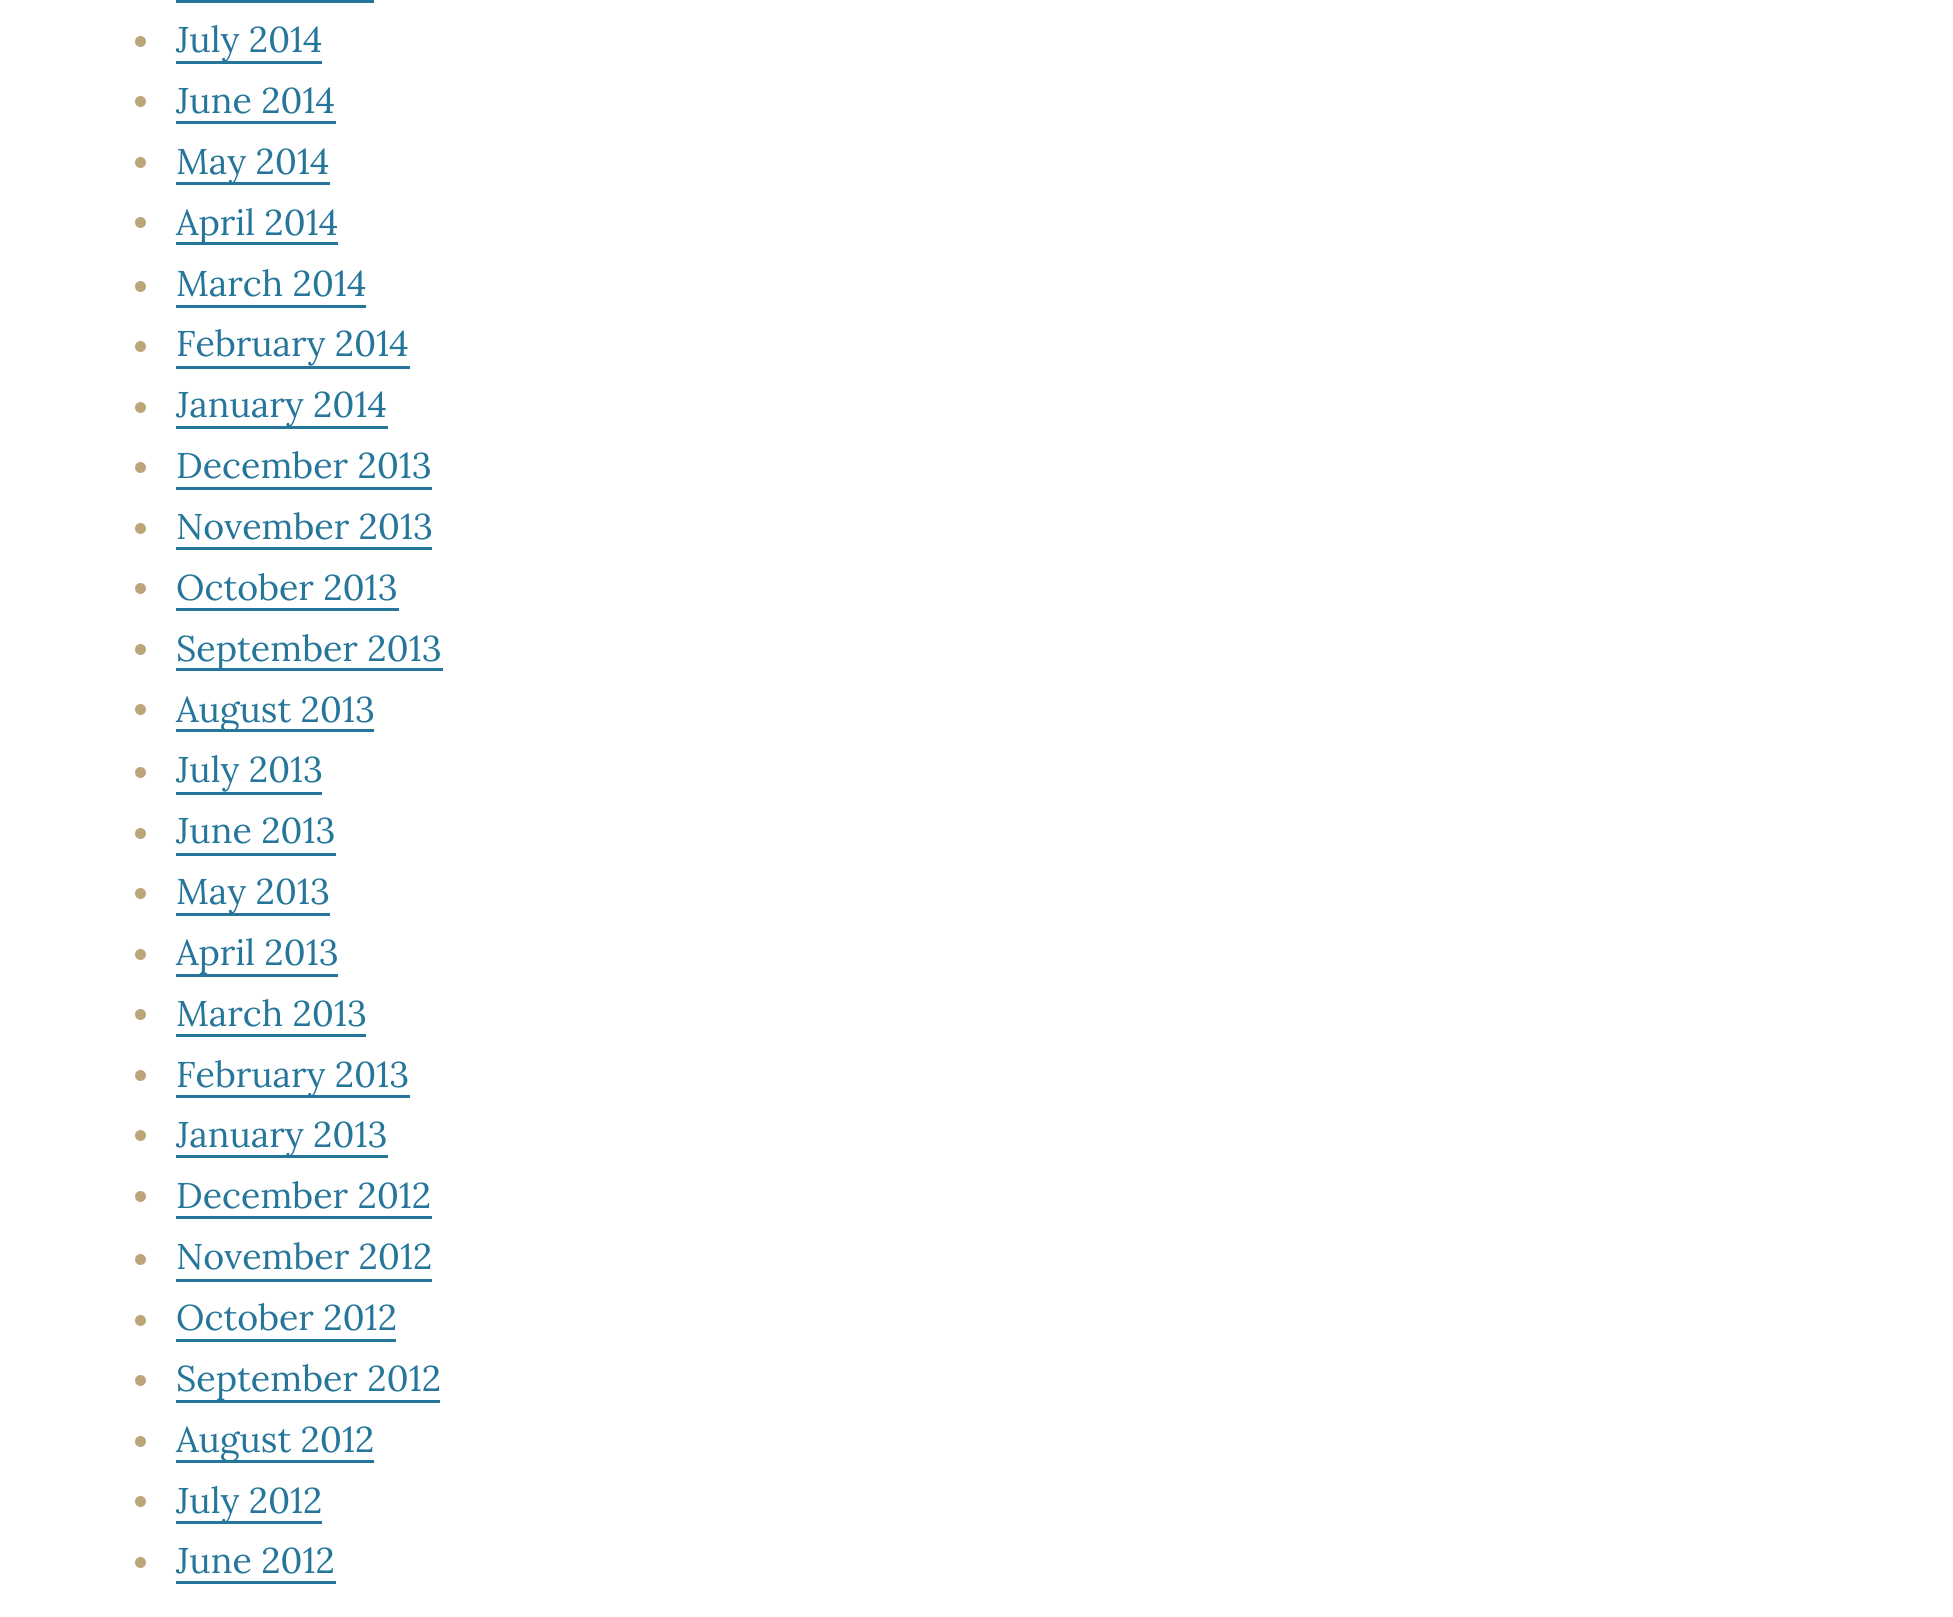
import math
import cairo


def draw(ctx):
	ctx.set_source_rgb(1, 1, 1)
	ctx.paint()
	ctx.set_source_rgb(0.149, 0.463, 0.608)
	ctx.rectangle(176, 0, 198, 3)
	ctx.fill()
	ctx.set_source_rgb(0.733, 0.647, 0.475)
	ctx.arc(140.5, 41.5, 5.5, 0, 2 * math.pi)
	ctx.fill()
	ctx.set_source_rgb(0.149, 0.463, 0.608)
	ctx.rectangle(176, 61, 146, 3)
	ctx.fill()
	ctx.select_font_face('Lora')
	ctx.set_font_size(35.75)
	ctx.move_to(176, 52)
	ctx.show_text('July 2014')
	ctx.set_source_rgb(0.733, 0.647, 0.475)
	ctx.new_path()
	ctx.arc(140.5, 101.5, 5.5, 0, 2 * math.pi)
	ctx.fill()
	ctx.set_source_rgb(0.149, 0.463, 0.608)
	ctx.move_to(176, 113)
	ctx.show_text('June 2014')
	ctx.rectangle(176, 121, 160, 3)
	ctx.fill()
	ctx.set_source_rgb(0.733, 0.647, 0.475)
	ctx.arc(140.5, 162.5, 5.5, 0, 2 * math.pi)
	ctx.fill()
	ctx.set_source_rgb(0.149, 0.463, 0.608)
	ctx.rectangle(176, 182, 154, 3)
	ctx.fill()
	ctx.move_to(176, 174)
	ctx.show_text('May 2014')
	ctx.set_source_rgb(0.733, 0.647, 0.475)
	ctx.new_path()
	ctx.arc(140.5, 222.5, 5.5, 0, 2 * math.pi)
	ctx.fill()
	ctx.set_source_rgb(0.149, 0.463, 0.608)
	ctx.rectangle(176, 242, 162, 3)
	ctx.fill()
	ctx.move_to(176, 235)
	ctx.show_text('April 2014')
	ctx.set_source_rgb(0.733, 0.647, 0.475)
	ctx.new_path()
	ctx.arc(140.5, 286.5, 5.5, 0, 2 * math.pi)
	ctx.fill()
	ctx.set_source_rgb(0.149, 0.463, 0.608)
	ctx.move_to(176, 296)
	ctx.show_text('March 2014')
	ctx.rectangle(176, 305, 190, 3)
	ctx.fill()
	ctx.set_source_rgb(0.733, 0.647, 0.475)
	ctx.arc(140.5, 346.5, 5.5, 0, 2 * math.pi)
	ctx.fill()
	ctx.set_source_rgb(0.149, 0.463, 0.608)
	ctx.move_to(176, 356)
	ctx.show_text('February 2014')
	ctx.rectangle(176, 366, 234, 3)
	ctx.fill()
	ctx.set_source_rgb(0.733, 0.647, 0.475)
	ctx.arc(140.5, 407.5, 5.5, 0, 2 * math.pi)
	ctx.fill()
	ctx.set_source_rgb(0.149, 0.463, 0.608)
	ctx.rectangle(176, 426, 212, 3)
	ctx.fill()
	ctx.move_to(176, 417)
	ctx.show_text('January 2014')
	ctx.set_source_rgb(0.733, 0.647, 0.475)
	ctx.new_path()
	ctx.arc(140.5, 467.5, 5.5, 0, 2 * math.pi)
	ctx.fill()
	ctx.set_source_rgb(0.149, 0.463, 0.608)
	ctx.move_to(176, 478)
	ctx.show_text('December 2013')
	ctx.rectangle(176, 487, 256, 3)
	ctx.fill()
	ctx.set_source_rgb(0.733, 0.647, 0.475)
	ctx.arc(140.5, 528.5, 5.5, 0, 2 * math.pi)
	ctx.fill()
	ctx.set_source_rgb(0.149, 0.463, 0.608)
	ctx.move_to(176, 539)
	ctx.show_text('November 2013')
	ctx.rectangle(176, 547, 256, 3)
	ctx.fill()
	ctx.set_source_rgb(0.733, 0.647, 0.475)
	ctx.arc(140.5, 588.5, 5.5, 0, 2 * math.pi)
	ctx.fill()
	ctx.set_source_rgb(0.149, 0.463, 0.608)
	ctx.move_to(176, 600)
	ctx.show_text('October 2013')
	ctx.rectangle(176, 608, 223, 3)
	ctx.fill()
	ctx.set_source_rgb(0.733, 0.647, 0.475)
	ctx.arc(140.5, 649.5, 5.5, 0, 2 * math.pi)
	ctx.fill()
	ctx.set_source_rgb(0.149, 0.463, 0.608)
	ctx.rectangle(176, 668, 267, 3)
	ctx.fill()
	ctx.move_to(176, 661)
	ctx.show_text('September 2013')
	ctx.set_source_rgb(0.733, 0.647, 0.475)
	ctx.new_path()
	ctx.arc(140.5, 709.5, 5.5, 0, 2 * math.pi)
	ctx.fill()
	ctx.set_source_rgb(0.149, 0.463, 0.608)
	ctx.rectangle(176, 729, 198, 3)
	ctx.fill()
	ctx.move_to(176, 722)
	ctx.show_text('August 2013')
	ctx.set_source_rgb(0.733, 0.647, 0.475)
	ctx.new_path()
	ctx.arc(140.5, 772.5, 5.5, 0, 2 * math.pi)
	ctx.fill()
	ctx.set_source_rgb(0.149, 0.463, 0.608)
	ctx.move_to(176, 782)
	ctx.show_text('July 2013')
	ctx.rectangle(176, 792, 146, 3)
	ctx.fill()
	ctx.set_source_rgb(0.733, 0.647, 0.475)
	ctx.arc(140.5, 833.5, 5.5, 0, 2 * math.pi)
	ctx.fill()
	ctx.set_source_rgb(0.149, 0.463, 0.608)
	ctx.move_to(176, 843)
	ctx.show_text('June 2013')
	ctx.rectangle(176, 853, 160, 3)
	ctx.fill()
	ctx.set_source_rgb(0.733, 0.647, 0.475)
	ctx.arc(140.5, 893.5, 5.5, 0, 2 * math.pi)
	ctx.fill()
	ctx.set_source_rgb(0.149, 0.463, 0.608)
	ctx.rectangle(176, 913, 154, 3)
	ctx.fill()
	ctx.move_to(176, 904)
	ctx.show_text('May 2013')
	ctx.set_source_rgb(0.733, 0.647, 0.475)
	ctx.new_path()
	ctx.arc(140.5, 954.5, 5.5, 0, 2 * math.pi)
	ctx.fill()
	ctx.set_source_rgb(0.149, 0.463, 0.608)
	ctx.rectangle(176, 974, 162, 3)
	ctx.fill()
	ctx.move_to(176, 965)
	ctx.show_text('April 2013')
	ctx.set_source_rgb(0.733, 0.647, 0.475)
	ctx.new_path()
	ctx.arc(140.5, 1014.5, 5.5, 0, 2 * math.pi)
	ctx.fill()
	ctx.set_source_rgb(0.149, 0.463, 0.608)
	ctx.move_to(176, 1026)
	ctx.show_text('March 2013')
	ctx.rectangle(176, 1034, 190, 3)
	ctx.fill()
	ctx.set_source_rgb(0.733, 0.647, 0.475)
	ctx.arc(140.5, 1075.5, 5.5, 0, 2 * math.pi)
	ctx.fill()
	ctx.set_source_rgb(0.149, 0.463, 0.608)
	ctx.rectangle(176, 1095, 234, 3)
	ctx.fill()
	ctx.move_to(176, 1087)
	ctx.show_text('February 2013')
	ctx.set_source_rgb(0.733, 0.647, 0.475)
	ctx.new_path()
	ctx.arc(140.5, 1135.5, 5.5, 0, 2 * math.pi)
	ctx.fill()
	ctx.set_source_rgb(0.149, 0.463, 0.608)
	ctx.rectangle(176, 1155, 212, 3)
	ctx.fill()
	ctx.move_to(176, 1147)
	ctx.show_text('January 2013')
	ctx.set_source_rgb(0.733, 0.647, 0.475)
	ctx.new_path()
	ctx.arc(140.5, 1196.5, 5.5, 0, 2 * math.pi)
	ctx.fill()
	ctx.set_source_rgb(0.149, 0.463, 0.608)
	ctx.move_to(176, 1208)
	ctx.show_text('December 2012')
	ctx.rectangle(176, 1216, 256, 3)
	ctx.fill()
	ctx.set_source_rgb(0.733, 0.647, 0.475)
	ctx.arc(140.5, 1259.5, 5.5, 0, 2 * math.pi)
	ctx.fill()
	ctx.set_source_rgb(0.149, 0.463, 0.608)
	ctx.move_to(176, 1269)
	ctx.show_text('November 2012')
	ctx.rectangle(176, 1279, 256, 3)
	ctx.fill()
	ctx.set_source_rgb(0.733, 0.647, 0.475)
	ctx.arc(140.5, 1320.5, 5.5, 0, 2 * math.pi)
	ctx.fill()
	ctx.set_source_rgb(0.149, 0.463, 0.608)
	ctx.move_to(176, 1330)
	ctx.show_text('October 2012')
	ctx.rectangle(176, 1339, 220, 3)
	ctx.fill()
	ctx.set_source_rgb(0.733, 0.647, 0.475)
	ctx.arc(140.5, 1380.5, 5.5, 0, 2 * math.pi)
	ctx.fill()
	ctx.set_source_rgb(0.149, 0.463, 0.608)
	ctx.rectangle(176, 1400, 264, 3)
	ctx.fill()
	ctx.move_to(176, 1391)
	ctx.show_text('September 2012')
	ctx.set_source_rgb(0.733, 0.647, 0.475)
	ctx.new_path()
	ctx.arc(140.5, 1441.5, 5.5, 0, 2 * math.pi)
	ctx.fill()
	ctx.set_source_rgb(0.149, 0.463, 0.608)
	ctx.rectangle(176, 1460, 198, 3)
	ctx.fill()
	ctx.move_to(176, 1452)
	ctx.show_text('August 2012')
	ctx.set_source_rgb(0.733, 0.647, 0.475)
	ctx.new_path()
	ctx.arc(140.5, 1501.5, 5.5, 0, 2 * math.pi)
	ctx.fill()
	ctx.set_source_rgb(0.149, 0.463, 0.608)
	ctx.rectangle(176, 1521, 146, 3)
	ctx.fill()
	ctx.move_to(176, 1513)
	ctx.show_text('July 2012')
	ctx.set_source_rgb(0.733, 0.647, 0.475)
	ctx.new_path()
	ctx.arc(140.5, 1562.5, 5.5, 0, 2 * math.pi)
	ctx.fill()
	ctx.set_source_rgb(0.149, 0.463, 0.608)
	ctx.move_to(176, 1573)
	ctx.show_text('June 2012')
	ctx.rectangle(176, 1581, 160, 3)
	ctx.fill()


surface = cairo.ImageSurface(cairo.FORMAT_RGB24, 1953, 1617)
ctx = cairo.Context(surface)
options = cairo.FontOptions()
options.set_hint_metrics(cairo.HINT_METRICS_OFF)
options.set_hint_style(cairo.HINT_STYLE_NONE)
ctx.set_font_options(options)
ctx.set_miter_limit(4)
draw(ctx)
surface.write_to_png('image.png')
